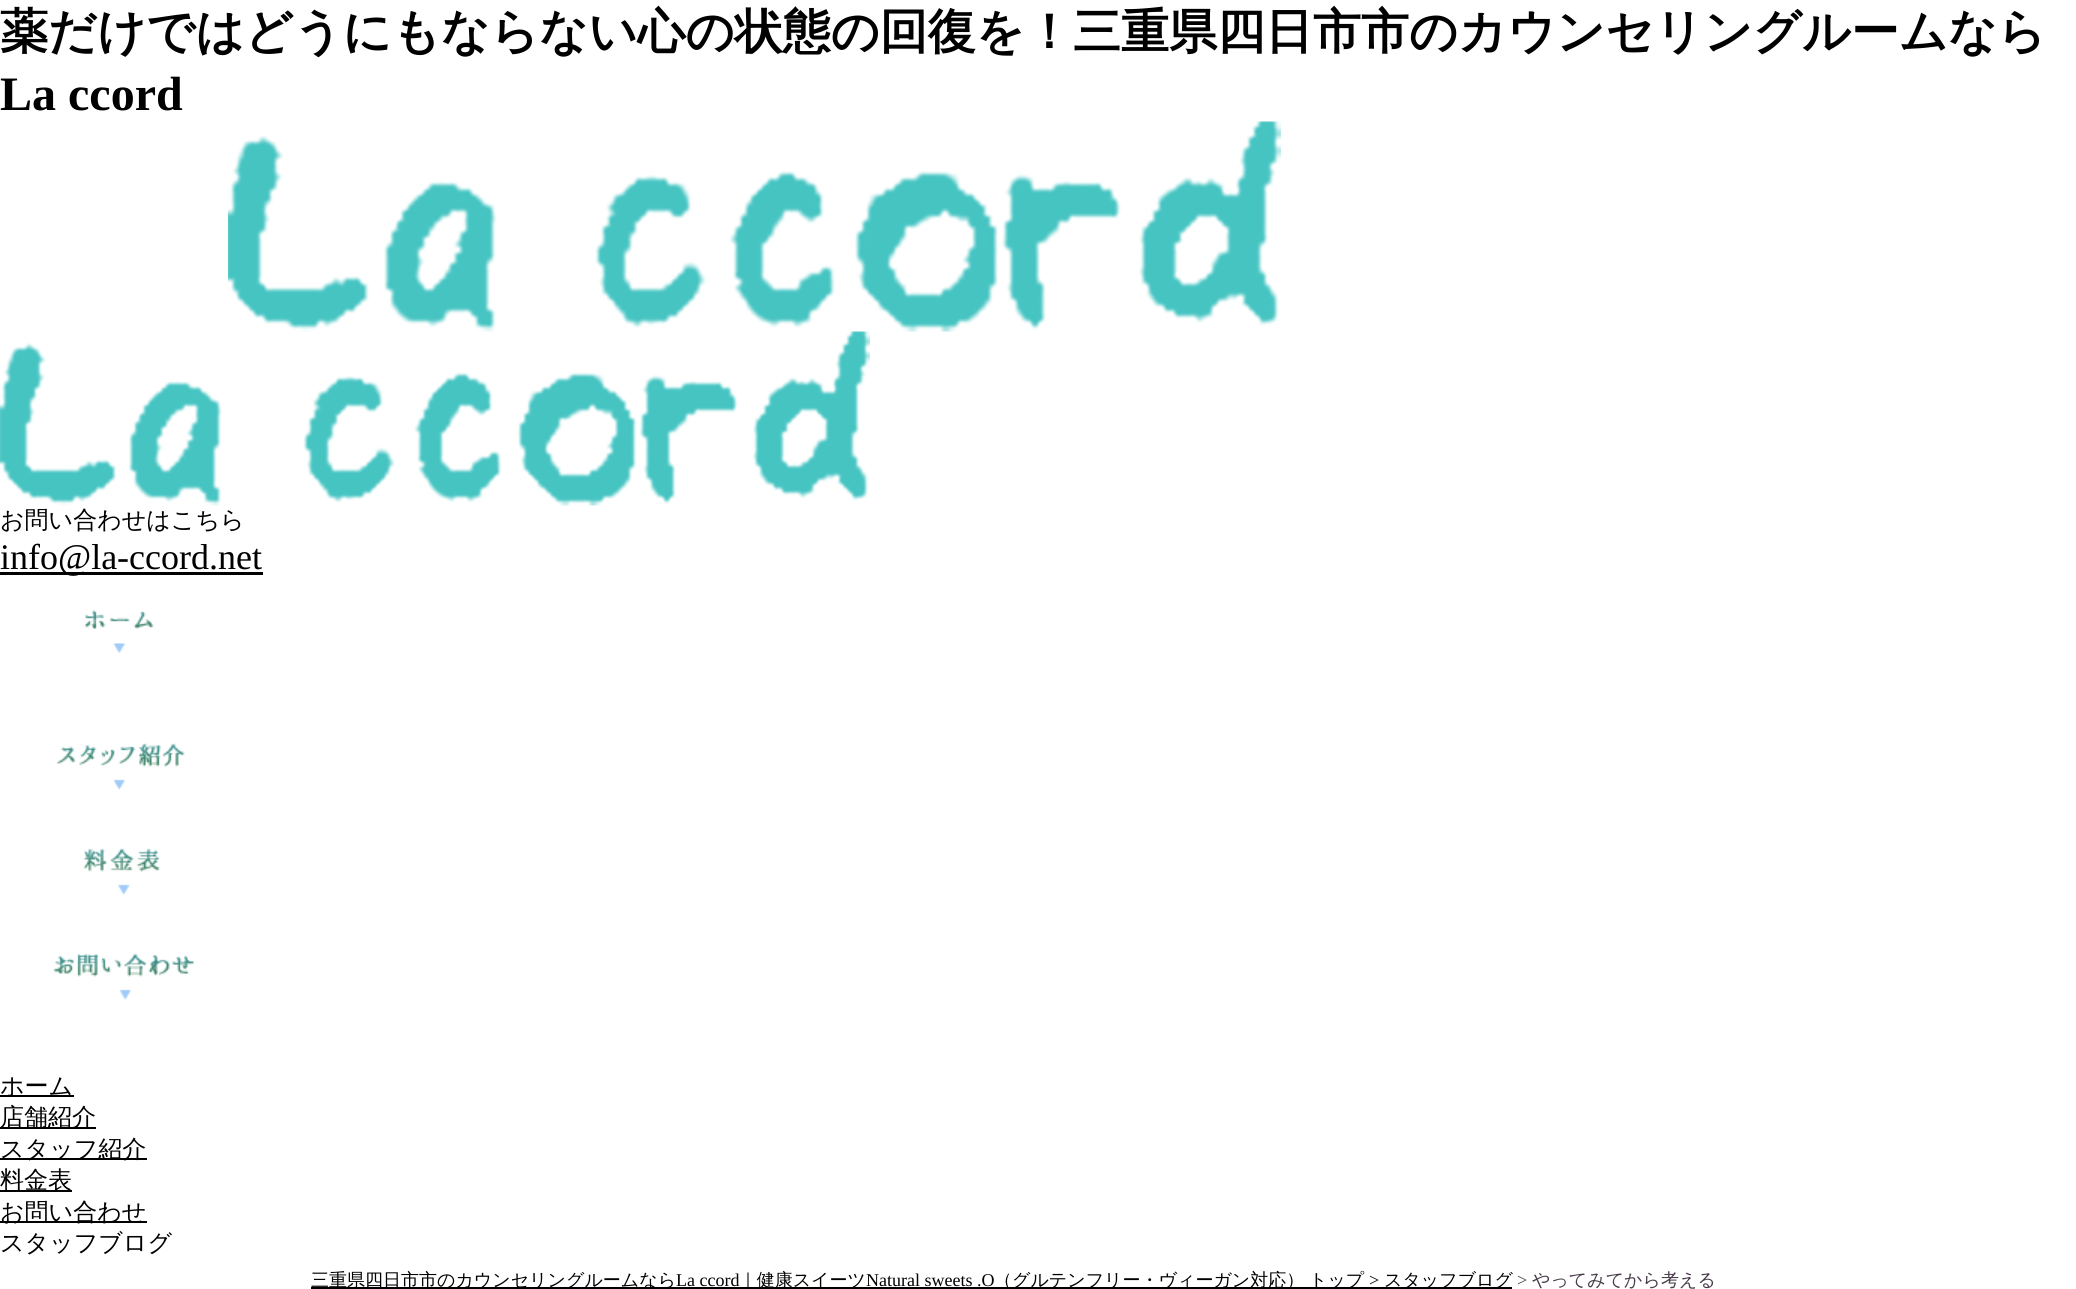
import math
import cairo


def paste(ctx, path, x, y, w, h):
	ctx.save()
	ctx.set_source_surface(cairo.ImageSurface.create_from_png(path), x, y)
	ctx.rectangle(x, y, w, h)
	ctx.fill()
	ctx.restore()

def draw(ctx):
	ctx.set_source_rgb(1, 1, 1)
	ctx.paint()
	ctx.select_font_face('WenQuanYi Zen Hei', cairo.FONT_SLANT_NORMAL, cairo.FONT_WEIGHT_BOLD)
	ctx.set_font_size(48)
	ctx.set_source_rgb(0, 0, 0)
	ctx.move_to(0, 48)
	ctx.show_text('薬だけではどうにもならない心の状態の回復を！三重県四日市市のカウンセリングルームなら')
	ctx.select_font_face('Liberation Serif', cairo.FONT_SLANT_NORMAL, cairo.FONT_WEIGHT_BOLD)
	ctx.move_to(0, 110)
	ctx.show_text('La ccord')
	paste(ctx, 'media/1.png', 228, 121, 1053, 211)
	paste(ctx, 'media/2.png', 0, 331, 870, 175)
	ctx.select_font_face('WenQuanYi Zen Hei Medium')
	ctx.set_font_size(24)
	ctx.move_to(0, 528)
	ctx.show_text('お問い合わせはこちら')
	ctx.rectangle(0, 572, 263, 3)
	ctx.fill()
	ctx.select_font_face('Liberation Serif')
	ctx.set_font_size(36)
	ctx.move_to(0, 569)
	ctx.show_text('info@la-ccord.net')
	paste(ctx, 'media/3.png', 85, 610, 69, 43)
	paste(ctx, 'media/4.png', 56, 743, 129, 47)
	paste(ctx, 'media/5.png', 83, 848, 77, 47)
	paste(ctx, 'media/6.png', 53, 953, 141, 47)
	ctx.rectangle(0, 1095, 74, 2)
	ctx.fill()
	ctx.select_font_face('WenQuanYi Zen Hei Medium')
	ctx.set_font_size(24)
	ctx.move_to(0, 1094)
	ctx.show_text('ホーム')
	ctx.rectangle(0, 1127, 96, 2)
	ctx.fill()
	ctx.move_to(0, 1125)
	ctx.show_text('店舗紹介')
	ctx.rectangle(0, 1158, 147, 2)
	ctx.fill()
	ctx.move_to(0, 1157)
	ctx.show_text('スタッフ紹介')
	ctx.rectangle(0, 1190, 72, 2)
	ctx.fill()
	ctx.move_to(0, 1188)
	ctx.show_text('料金表')
	ctx.rectangle(0, 1221, 147, 2)
	ctx.fill()
	ctx.move_to(0, 1220)
	ctx.show_text('お問い合わせ')
	ctx.move_to(0, 1251)
	ctx.show_text('スタッフブログ')
	ctx.rectangle(311, 1287, 1201, 2)
	ctx.fill()
	ctx.set_font_size(18)
	ctx.move_to(311, 1286)
	ctx.show_text('三重県四日市市のカウンセリングルームなら')
	ctx.select_font_face('Liberation Serif')
	ctx.move_to(676, 1286)
	ctx.show_text('La ccord')
	ctx.select_font_face('WenQuanYi Zen Hei Medium')
	ctx.move_to(739, 1286)
	ctx.show_text('｜健康スイーツ')
	ctx.select_font_face('Liberation Serif')
	ctx.move_to(866, 1286)
	ctx.show_text('Natural sweets .O')
	ctx.select_font_face('WenQuanYi Zen Hei Medium')
	ctx.move_to(994, 1286)
	ctx.show_text('（グルテンフリー・ヴィーガン対応）')
	ctx.move_to(1309, 1286)
	ctx.show_text('トップ')
	ctx.select_font_face('Liberation Serif')
	ctx.move_to(1369, 1286)
	ctx.show_text('>')
	ctx.select_font_face('WenQuanYi Zen Hei Medium')
	ctx.move_to(1384, 1286)
	ctx.show_text('スタッフブログ')
	ctx.select_font_face('Liberation Serif')
	ctx.set_source_rgb(0.282, 0.235, 0.29)
	ctx.move_to(1517, 1286)
	ctx.show_text('>')
	ctx.select_font_face('WenQuanYi Zen Hei Medium')
	ctx.move_to(1532, 1286)
	ctx.show_text('やってみてから考える')


surface = cairo.ImageSurface(cairo.FORMAT_RGB24, 2076, 1289)
ctx = cairo.Context(surface)
options = cairo.FontOptions()
options.set_hint_metrics(cairo.HINT_METRICS_OFF)
options.set_hint_style(cairo.HINT_STYLE_NONE)
ctx.set_font_options(options)
ctx.set_miter_limit(4)
draw(ctx)
surface.write_to_png('image.png')
